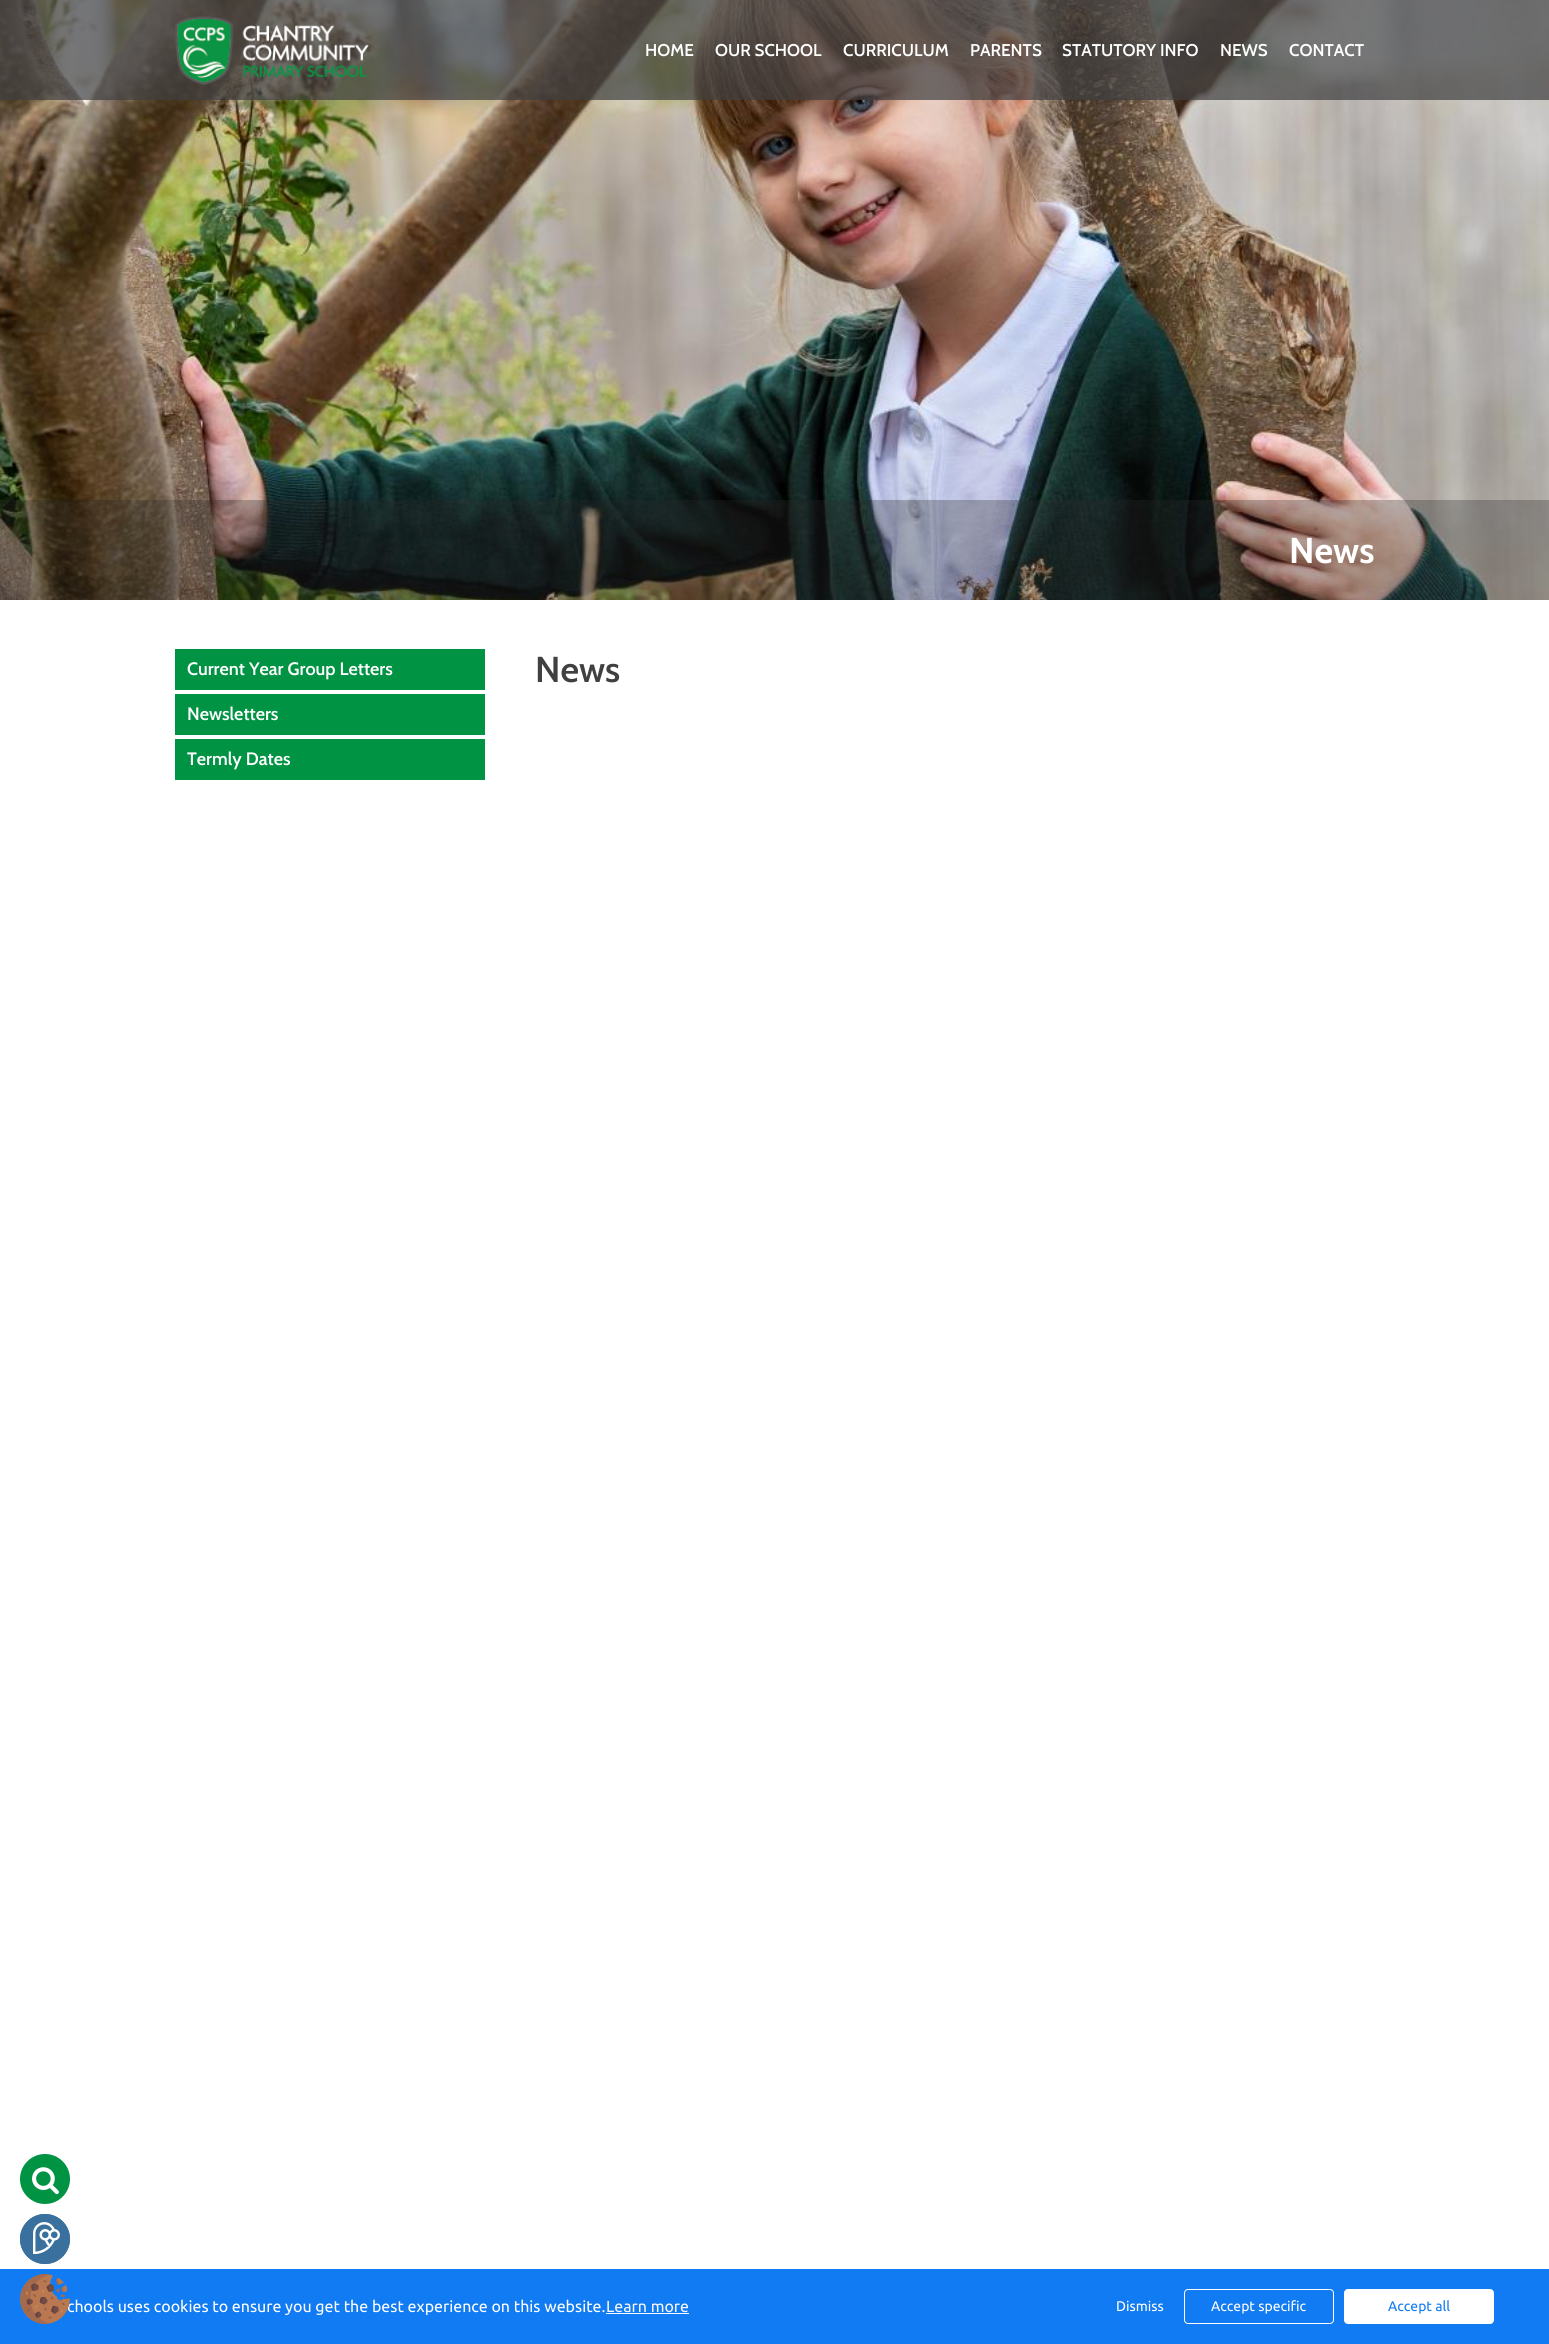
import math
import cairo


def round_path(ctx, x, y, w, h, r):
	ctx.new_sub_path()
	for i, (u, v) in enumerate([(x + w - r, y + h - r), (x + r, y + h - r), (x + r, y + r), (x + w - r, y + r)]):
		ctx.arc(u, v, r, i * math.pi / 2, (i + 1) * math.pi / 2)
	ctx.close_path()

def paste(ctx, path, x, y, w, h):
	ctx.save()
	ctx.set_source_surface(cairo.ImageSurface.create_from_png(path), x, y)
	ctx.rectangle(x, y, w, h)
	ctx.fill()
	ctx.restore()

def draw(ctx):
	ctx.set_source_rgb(1, 1, 1)
	ctx.paint()
	paste(ctx, 'media/1.png', 0, 0, 1549, 600)
	ctx.set_source_rgba(0.251, 0.251, 0.255, 0.7)
	ctx.rectangle(0, 0, 1549, 100)
	ctx.fill()
	paste(ctx, 'media/2.png', 175, 16, 194, 69)
	ctx.select_font_face('Cabin SemiBold')
	ctx.set_font_size(17)
	ctx.set_source_rgb(1, 1, 1)
	for x, y, s in [
		(645, 56, 'HOME'),
		(715, 56, 'OUR SCHOOL'),
		(843, 56, 'CURRICULUM'),
		(970, 56, 'PARENTS'),
		(1062, 56, 'STATUTORY INFO'),
		(1220, 56, 'NEWS'),
		(1289, 56, 'CONTACT'),
	]:
		ctx.move_to(x, y)
		ctx.show_text(s)
	ctx.set_source_rgba(0.157, 0.157, 0.161, 0.3)
	ctx.rectangle(0, 500, 1549, 100)
	ctx.fill()
	ctx.select_font_face('Cabin', cairo.FONT_SLANT_NORMAL, cairo.FONT_WEIGHT_BOLD)
	ctx.set_font_size(36)
	ctx.set_source_rgb(1, 1, 1)
	ctx.move_to(1289, 563)
	ctx.show_text('News')
	ctx.set_source_rgb(0, 0.576, 0.267)
	ctx.new_path()
	ctx.arc(45, 2179, 25, 0, 2 * math.pi)
	ctx.fill()
	paste(ctx, 'media/3.png', 32, 2167, 27, 28)
	ctx.set_source_rgb(0.227, 0.439, 0.616)
	ctx.arc(45, 2239, 25, 0, 2 * math.pi)
	ctx.fill()
	paste(ctx, 'media/4.png', 33, 2222, 27, 32)
	ctx.arc(45, 2239, 24.5, 0, 2 * math.pi)
	ctx.set_line_width(1)
	ctx.stroke()
	ctx.set_source_rgb(0.067, 0.482, 0.953)
	ctx.rectangle(0, 2269, 1549, 75)
	ctx.fill()
	ctx.select_font_face('Ubuntu')
	ctx.set_font_size(16)
	ctx.set_source_rgb(1, 1, 1)
	ctx.move_to(67, 2312)
	ctx.show_text('chools uses cookies to ensure you get the best experience on this website.')
	paste(ctx, 'media/5.png', 20, 2274, 50, 50)
	ctx.set_source_rgb(0, 0.576, 0.267)
	ctx.rectangle(175, 649, 310, 41)
	ctx.fill()
	ctx.select_font_face('Cabin SemiBold')
	ctx.set_font_size(18)
	ctx.set_source_rgb(1, 1, 1)
	ctx.move_to(187, 675)
	ctx.show_text('Current Year Group Letters')
	ctx.set_source_rgb(0, 0.576, 0.267)
	ctx.rectangle(175, 694, 310, 41)
	ctx.fill()
	ctx.set_source_rgb(1, 1, 1)
	ctx.move_to(187, 720)
	ctx.show_text('Newsletters')
	ctx.set_source_rgb(0, 0.576, 0.267)
	ctx.rectangle(175, 739, 310, 41)
	ctx.fill()
	ctx.set_source_rgb(1, 1, 1)
	ctx.move_to(187, 765)
	ctx.show_text('Termly Dates')
	ctx.set_font_size(36)
	ctx.set_source_rgb(0.251, 0.251, 0.255)
	ctx.move_to(535, 682)
	ctx.show_text('News')
	ctx.set_source_rgb(0.969, 0.969, 0.969)
	ctx.rectangle(606, 2313, 83, 1)
	ctx.fill()
	ctx.select_font_face('Ubuntu')
	ctx.set_font_size(16)
	ctx.move_to(606, 2312)
	ctx.show_text('Learn more')
	ctx.set_font_size(14)
	ctx.set_source_rgb(1, 1, 1)
	ctx.move_to(1116, 2311)
	ctx.show_text('Dismiss')
	round_path(ctx, 1184.5, 2289.5, 149, 34, 3.5)
	ctx.stroke()
	ctx.move_to(1211, 2311)
	ctx.show_text('Accept specific')
	round_path(ctx, 1344.5, 2289.5, 149, 34, 3.5)
	ctx.fill_preserve()
	ctx.stroke()
	ctx.set_source_rgb(0.067, 0.482, 0.953)
	ctx.move_to(1388, 2311)
	ctx.show_text('Accept all')


surface = cairo.ImageSurface(cairo.FORMAT_RGB24, 1549, 2344)
ctx = cairo.Context(surface)
options = cairo.FontOptions()
options.set_hint_metrics(cairo.HINT_METRICS_OFF)
options.set_hint_style(cairo.HINT_STYLE_NONE)
ctx.set_font_options(options)
ctx.set_miter_limit(4)
draw(ctx)
surface.write_to_png('image.png')
